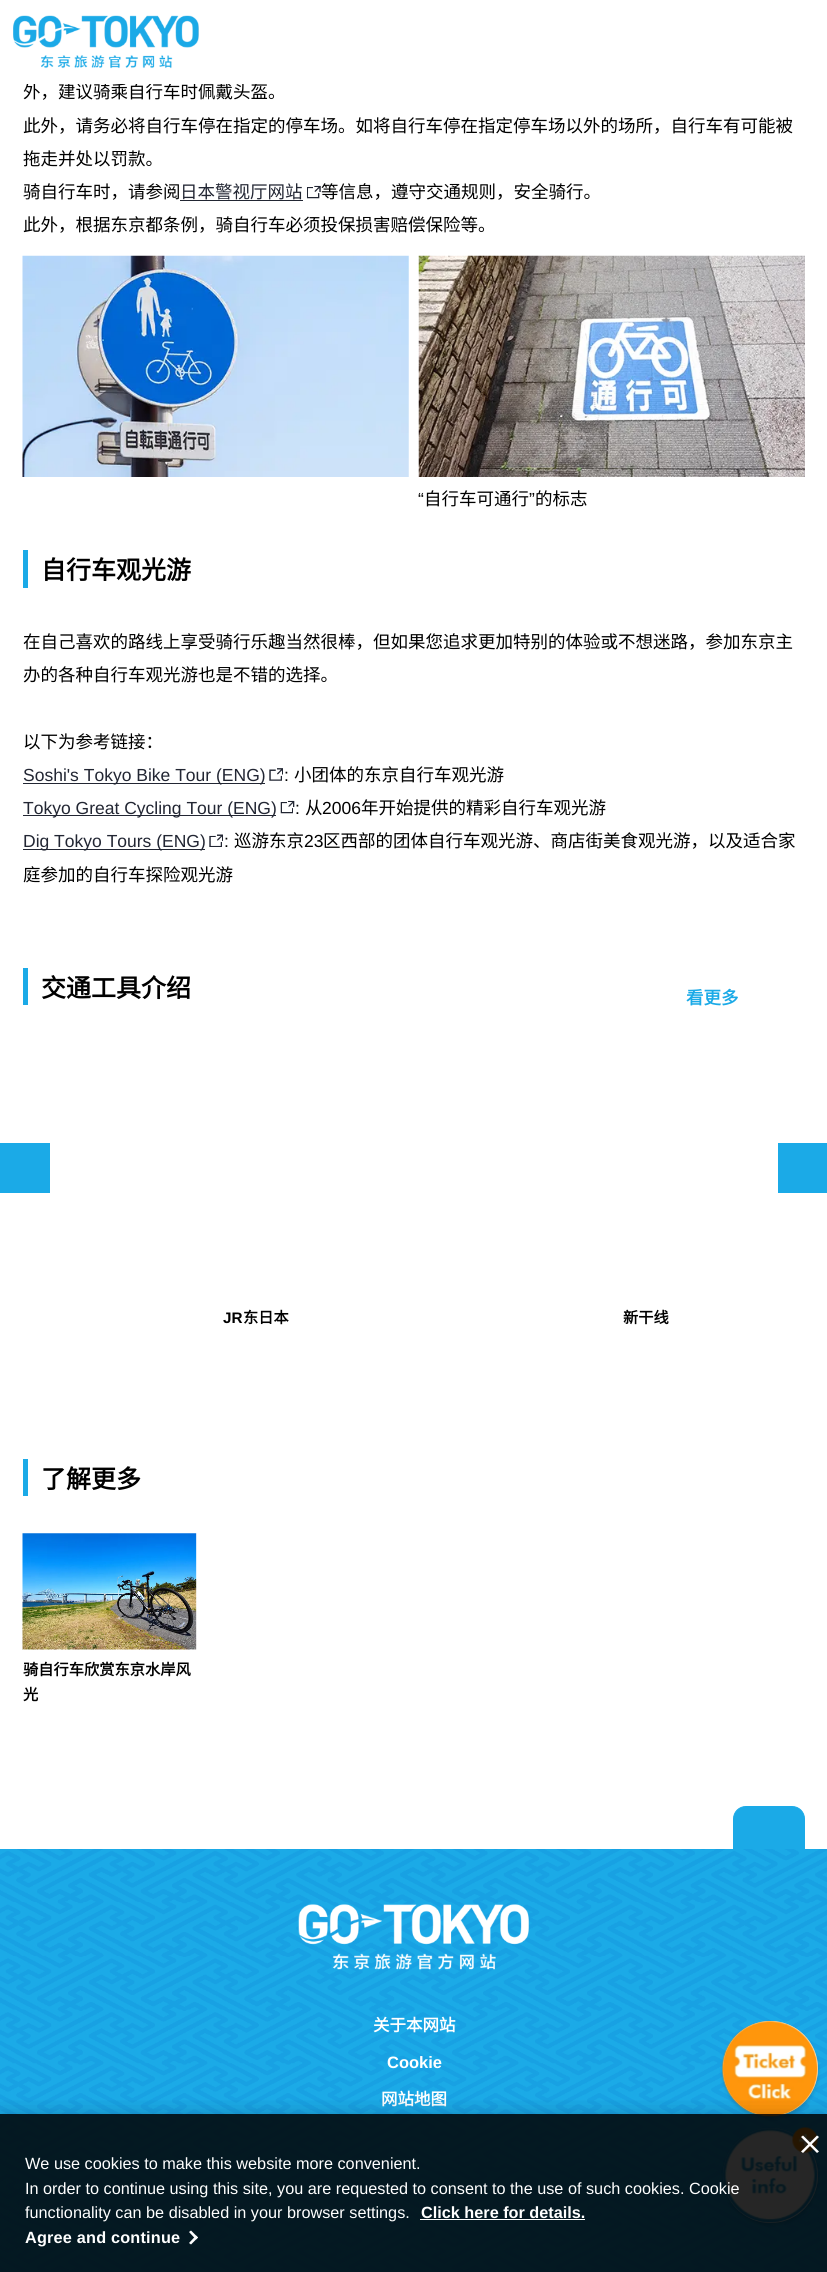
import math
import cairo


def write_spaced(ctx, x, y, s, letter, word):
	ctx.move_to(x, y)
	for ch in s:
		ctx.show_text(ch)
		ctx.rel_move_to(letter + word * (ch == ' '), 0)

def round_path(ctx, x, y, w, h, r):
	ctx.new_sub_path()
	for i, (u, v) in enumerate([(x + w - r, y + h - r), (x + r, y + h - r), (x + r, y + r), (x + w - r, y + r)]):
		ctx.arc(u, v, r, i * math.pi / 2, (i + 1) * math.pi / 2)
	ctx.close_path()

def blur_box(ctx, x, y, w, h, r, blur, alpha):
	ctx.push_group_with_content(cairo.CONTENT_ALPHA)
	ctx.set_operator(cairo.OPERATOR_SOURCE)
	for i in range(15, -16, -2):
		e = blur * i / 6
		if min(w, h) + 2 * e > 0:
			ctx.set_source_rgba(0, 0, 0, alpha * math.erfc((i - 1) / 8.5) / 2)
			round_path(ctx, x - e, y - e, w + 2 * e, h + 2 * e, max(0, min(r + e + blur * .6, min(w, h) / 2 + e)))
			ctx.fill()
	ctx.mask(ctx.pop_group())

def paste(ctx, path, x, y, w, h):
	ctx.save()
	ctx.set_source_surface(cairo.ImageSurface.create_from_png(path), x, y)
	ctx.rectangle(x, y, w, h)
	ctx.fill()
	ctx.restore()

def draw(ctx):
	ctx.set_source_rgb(1, 1, 1)
	ctx.paint()
	ctx.select_font_face('Noto Sans CJK SC')
	ctx.set_font_size(17.5)
	ctx.set_source_rgb(0, 0, 0)
	ctx.move_to(23, 98)
	ctx.show_text('外，建议骑乘自行车时佩戴头盔。')
	ctx.set_source_rgb(1, 1, 1)
	ctx.rectangle(26, 83, 231, 1)
	ctx.fill()
	paste(ctx, 'media/1.png', 13, 15, 186, 54)
	ctx.set_source_rgb(0, 0, 0)
	for x, y, s in [
		(23, 132, '此外，请务必将自行车停在指定的停车场。如将自行车停在指定停车场以外的场所，自行车有可能被'),
		(23, 165, '拖走并处以罚款。'),
		(23, 198, '骑自行车时，请参阅'),
	]:
		ctx.move_to(x, y)
		ctx.show_text(s)
	ctx.set_source_rgb(0.133, 0.149, 0.2)
	ctx.move_to(180, 198)
	ctx.show_text('日本警视厅网站')
	ctx.rectangle(180, 200, 123, 1)
	ctx.fill()
	paste(ctx, 'media/2.png', 307, 185, 14, 14)
	ctx.set_source_rgb(0, 0, 0)
	ctx.move_to(321, 198)
	ctx.show_text('等信息，遵守交通规则，安全骑行。')
	ctx.move_to(23, 231)
	ctx.show_text('此外，根据东京都条例，骑自行车必须投保损害赔偿保险等。')
	paste(ctx, 'media/3.png', 22, 255, 387, 222)
	paste(ctx, 'media/4.png', 418, 255, 387, 222)
	ctx.select_font_face('Liberation Sans')
	ctx.move_to(418, 505)
	ctx.show_text('“')
	ctx.select_font_face('Noto Sans CJK SC')
	ctx.move_to(424, 505)
	ctx.show_text('自行车可通行')
	ctx.select_font_face('Liberation Sans')
	ctx.move_to(529, 505)
	ctx.show_text('”')
	ctx.select_font_face('Noto Sans CJK SC')
	ctx.move_to(535, 505)
	ctx.show_text('的标志')
	ctx.set_source_rgb(0.106, 0.667, 0.906)
	ctx.rectangle(23, 550, 5, 38)
	ctx.fill()
	ctx.select_font_face('Noto Sans CJK SC', cairo.FONT_SLANT_NORMAL, cairo.FONT_WEIGHT_BOLD)
	ctx.set_font_size(25)
	ctx.set_source_rgb(0, 0, 0)
	ctx.move_to(41, 579)
	ctx.show_text('自行车观光游')
	ctx.select_font_face('Noto Sans CJK SC')
	ctx.set_font_size(17.5)
	for x, y, s in [
		(23, 648, '在自己喜欢的路线上享受骑行乐趣当然很棒，但如果您追求更加特别的体验或不想迷路，参加东京主'),
		(23, 681, '办的各种自行车观光游也是不错的选择。'),
		(23, 748, '以下为参考链接：'),
	]:
		ctx.move_to(x, y)
		ctx.show_text(s)
	ctx.set_source_rgb(0.133, 0.149, 0.2)
	ctx.rectangle(23, 783, 242, 1)
	ctx.fill()
	ctx.select_font_face('Liberation Sans')
	ctx.move_to(23, 781)
	ctx.show_text('Soshi\'s Tokyo Bike Tour (ENG)')
	paste(ctx, 'media/5.png', 269, 768, 14, 13)
	ctx.set_source_rgb(0, 0, 0)
	ctx.move_to(284, 781)
	ctx.show_text(':')
	ctx.select_font_face('Noto Sans CJK SC')
	ctx.move_to(294, 781)
	ctx.show_text('小团体的东京自行车观光游')
	ctx.set_source_rgb(0.133, 0.149, 0.2)
	ctx.rectangle(23, 815, 253, 1)
	ctx.fill()
	ctx.select_font_face('Liberation Sans')
	ctx.move_to(23, 814)
	ctx.show_text('Tokyo Great Cycling Tour (ENG)')
	paste(ctx, 'media/6.png', 280, 800, 15, 14)
	ctx.set_source_rgb(0, 0, 0)
	ctx.move_to(295, 814)
	ctx.show_text(':')
	ctx.select_font_face('Noto Sans CJK SC')
	ctx.move_to(305, 814)
	ctx.show_text('从')
	ctx.select_font_face('Liberation Sans')
	ctx.move_to(322, 814)
	ctx.show_text('2006')
	ctx.select_font_face('Noto Sans CJK SC')
	ctx.move_to(361, 814)
	ctx.show_text('年开始提供的精彩自行车观光游')
	ctx.set_source_rgb(0.133, 0.149, 0.2)
	ctx.rectangle(23, 849, 182, 1)
	ctx.fill()
	ctx.select_font_face('Liberation Sans')
	ctx.move_to(23, 847)
	ctx.show_text('Dig Tokyo Tours (ENG)')
	paste(ctx, 'media/7.png', 209, 834, 14, 13)
	ctx.set_source_rgb(0, 0, 0)
	ctx.move_to(224, 847)
	ctx.show_text(':')
	ctx.select_font_face('Noto Sans CJK SC')
	ctx.move_to(234, 847)
	ctx.show_text('巡游东京')
	ctx.select_font_face('Liberation Sans')
	ctx.move_to(304, 847)
	ctx.show_text('23')
	ctx.select_font_face('Noto Sans CJK SC')
	ctx.move_to(323, 847)
	ctx.show_text('区西部的团体自行车观光游、商店街美食观光游，以及适合家')
	ctx.move_to(23, 881)
	ctx.show_text('庭参加的自行车探险观光游')
	ctx.set_source_rgb(0.106, 0.667, 0.906)
	ctx.rectangle(23, 968, 5, 37)
	ctx.fill()
	ctx.select_font_face('Noto Sans CJK SC', cairo.FONT_SLANT_NORMAL, cairo.FONT_WEIGHT_BOLD)
	ctx.set_font_size(25)
	ctx.set_source_rgb(0, 0, 0)
	ctx.move_to(41, 997)
	ctx.show_text('交通工具介绍')
	ctx.set_font_size(17.5)
	ctx.set_source_rgb(0.106, 0.667, 0.906)
	ctx.move_to(686, 1004)
	ctx.show_text('看更多')
	ctx.rectangle(0, 1143, 50, 50)
	ctx.fill()
	ctx.rectangle(778, 1143, 49, 50)
	ctx.fill()
	ctx.select_font_face('Liberation Sans', cairo.FONT_SLANT_NORMAL, cairo.FONT_WEIGHT_BOLD)
	ctx.set_font_size(15.25)
	ctx.set_source_rgb(0, 0, 0)
	ctx.move_to(223, 1323)
	ctx.show_text('JR')
	ctx.select_font_face('Noto Sans CJK SC', cairo.FONT_SLANT_NORMAL, cairo.FONT_WEIGHT_BOLD)
	ctx.move_to(243, 1323)
	ctx.show_text('东日本')
	ctx.move_to(623, 1323)
	ctx.show_text('新干线')
	ctx.set_source_rgb(0.106, 0.667, 0.906)
	ctx.rectangle(23, 1459, 5, 37)
	ctx.fill()
	ctx.set_font_size(25)
	ctx.set_source_rgb(0, 0, 0)
	ctx.move_to(41, 1488)
	ctx.show_text('了解更多')
	paste(ctx, 'media/8.png', 22, 1533, 175, 117)
	ctx.set_font_size(15.25)
	ctx.move_to(23, 1675)
	ctx.show_text('骑自行车欣赏东京水岸风')
	ctx.move_to(23, 1700)
	ctx.show_text('光')
	paste(ctx, 'media/9.png', 0, 1849, 827, 423)
	ctx.set_source_rgb(0.106, 0.667, 0.906)
	ctx.new_path()
	ctx.move_to(746, 1806.5)
	ctx.line_to(792, 1806.5)
	ctx.curve_to(799, 1806.5, 804.5, 1812, 804.5, 1819)
	ctx.line_to(804.5, 1848.5)
	ctx.line_to(733.5, 1848.5)
	ctx.line_to(733.5, 1819)
	ctx.curve_to(733.5, 1812, 739, 1806.5, 746, 1806.5)
	ctx.close_path()
	ctx.fill_preserve()
	ctx.set_line_width(1)
	ctx.stroke()
	paste(ctx, 'media/10.png', 298, 1904, 231, 66)
	ctx.set_font_size(16.5)
	ctx.set_source_rgb(1, 1, 1)
	ctx.move_to(373, 2031)
	ctx.show_text('关于本网站')
	ctx.select_font_face('Liberation Sans', cairo.FONT_SLANT_NORMAL, cairo.FONT_WEIGHT_BOLD)
	ctx.move_to(387, 2068)
	ctx.show_text('Cookie')
	ctx.select_font_face('Noto Sans CJK SC', cairo.FONT_SLANT_NORMAL, cairo.FONT_WEIGHT_BOLD)
	ctx.move_to(381, 2105)
	ctx.show_text('网站地图')
	ctx.set_source_rgb(0, 0, 0)
	blur_box(ctx, 723, 2024, 95, 95, 47.5, 2, 0.16)
	ctx.set_source_rgb(1, 1, 1)
	ctx.arc(770.5, 2068.5, 47.5, 0, 2 * math.pi)
	ctx.fill()
	paste(ctx, 'media/11.png', 722, 2021, 96, 96)
	ctx.set_source_rgb(0, 0, 0)
	blur_box(ctx, 723, 2130, 95, 95, 47.5, 2, 0.16)
	ctx.set_source_rgb(1, 1, 1)
	ctx.arc(770.5, 2175.5, 47.5, 0, 2 * math.pi)
	ctx.fill()
	paste(ctx, 'media/12.png', 722, 2127, 96, 96)
	paste(ctx, 'media/13.png', 792, 2127, 26, 26)
	ctx.save()
	ctx.rectangle(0, 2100, 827, 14)
	ctx.clip()
	ctx.set_source_rgb(0, 0, 0)
	blur_box(ctx, 0, 2114, 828, 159, 0, 11, 0.2)
	ctx.restore()
	ctx.set_source_rgba(0, 0, 0, 0.85)
	ctx.rectangle(0, 2114, 827, 158)
	ctx.fill()
	ctx.set_source_rgb(1, 1, 1)
	ctx.new_path()
	ctx.move_to(803, 2135.5)
	ctx.line_to(819, 2151.5)
	ctx.line_to(817, 2153)
	ctx.line_to(801, 2137)
	ctx.close_path()
	ctx.fill()
	ctx.new_path()
	ctx.move_to(801, 2151.5)
	ctx.line_to(817, 2135.5)
	ctx.line_to(819, 2137)
	ctx.line_to(803, 2153)
	ctx.close_path()
	ctx.fill()
	ctx.select_font_face('Liberation Sans')
	ctx.set_font_size(16.25)
	for x, y, s in [
		(25, 2169, 'We use cookies to make this website more convenient.'),
		(25, 2194, 'In order to continue using this site, you are requested to consent to the use of such cookies. Cookie'),
		(25, 2218, 'functionality can be disabled in your browser settings.'),
	]:
		ctx.move_to(x, y)
		ctx.show_text(s)
	ctx.select_font_face('Liberation Sans', cairo.FONT_SLANT_NORMAL, cairo.FONT_WEIGHT_BOLD)
	ctx.move_to(421, 2218)
	ctx.show_text('Click here for details.')
	ctx.rectangle(420, 2219, 165, 1)
	ctx.fill()
	write_spaced(ctx, 25, 2243, 'Agree and continue', 0.2, 0)
	ctx.new_path()
	ctx.move_to(191, 2230.5)
	ctx.line_to(198, 2237.5)
	ctx.line_to(196, 2239.5)
	ctx.line_to(189, 2232)
	ctx.close_path()
	ctx.fill()
	ctx.new_path()
	ctx.move_to(196, 2235.5)
	ctx.line_to(198, 2237.5)
	ctx.line_to(191, 2244.5)
	ctx.line_to(189, 2243)
	ctx.close_path()
	ctx.fill()


surface = cairo.ImageSurface(cairo.FORMAT_RGB24, 827, 2272)
ctx = cairo.Context(surface)
options = cairo.FontOptions()
options.set_hint_metrics(cairo.HINT_METRICS_OFF)
options.set_hint_style(cairo.HINT_STYLE_NONE)
ctx.set_font_options(options)
ctx.set_miter_limit(4)
draw(ctx)
surface.write_to_png('image.png')
